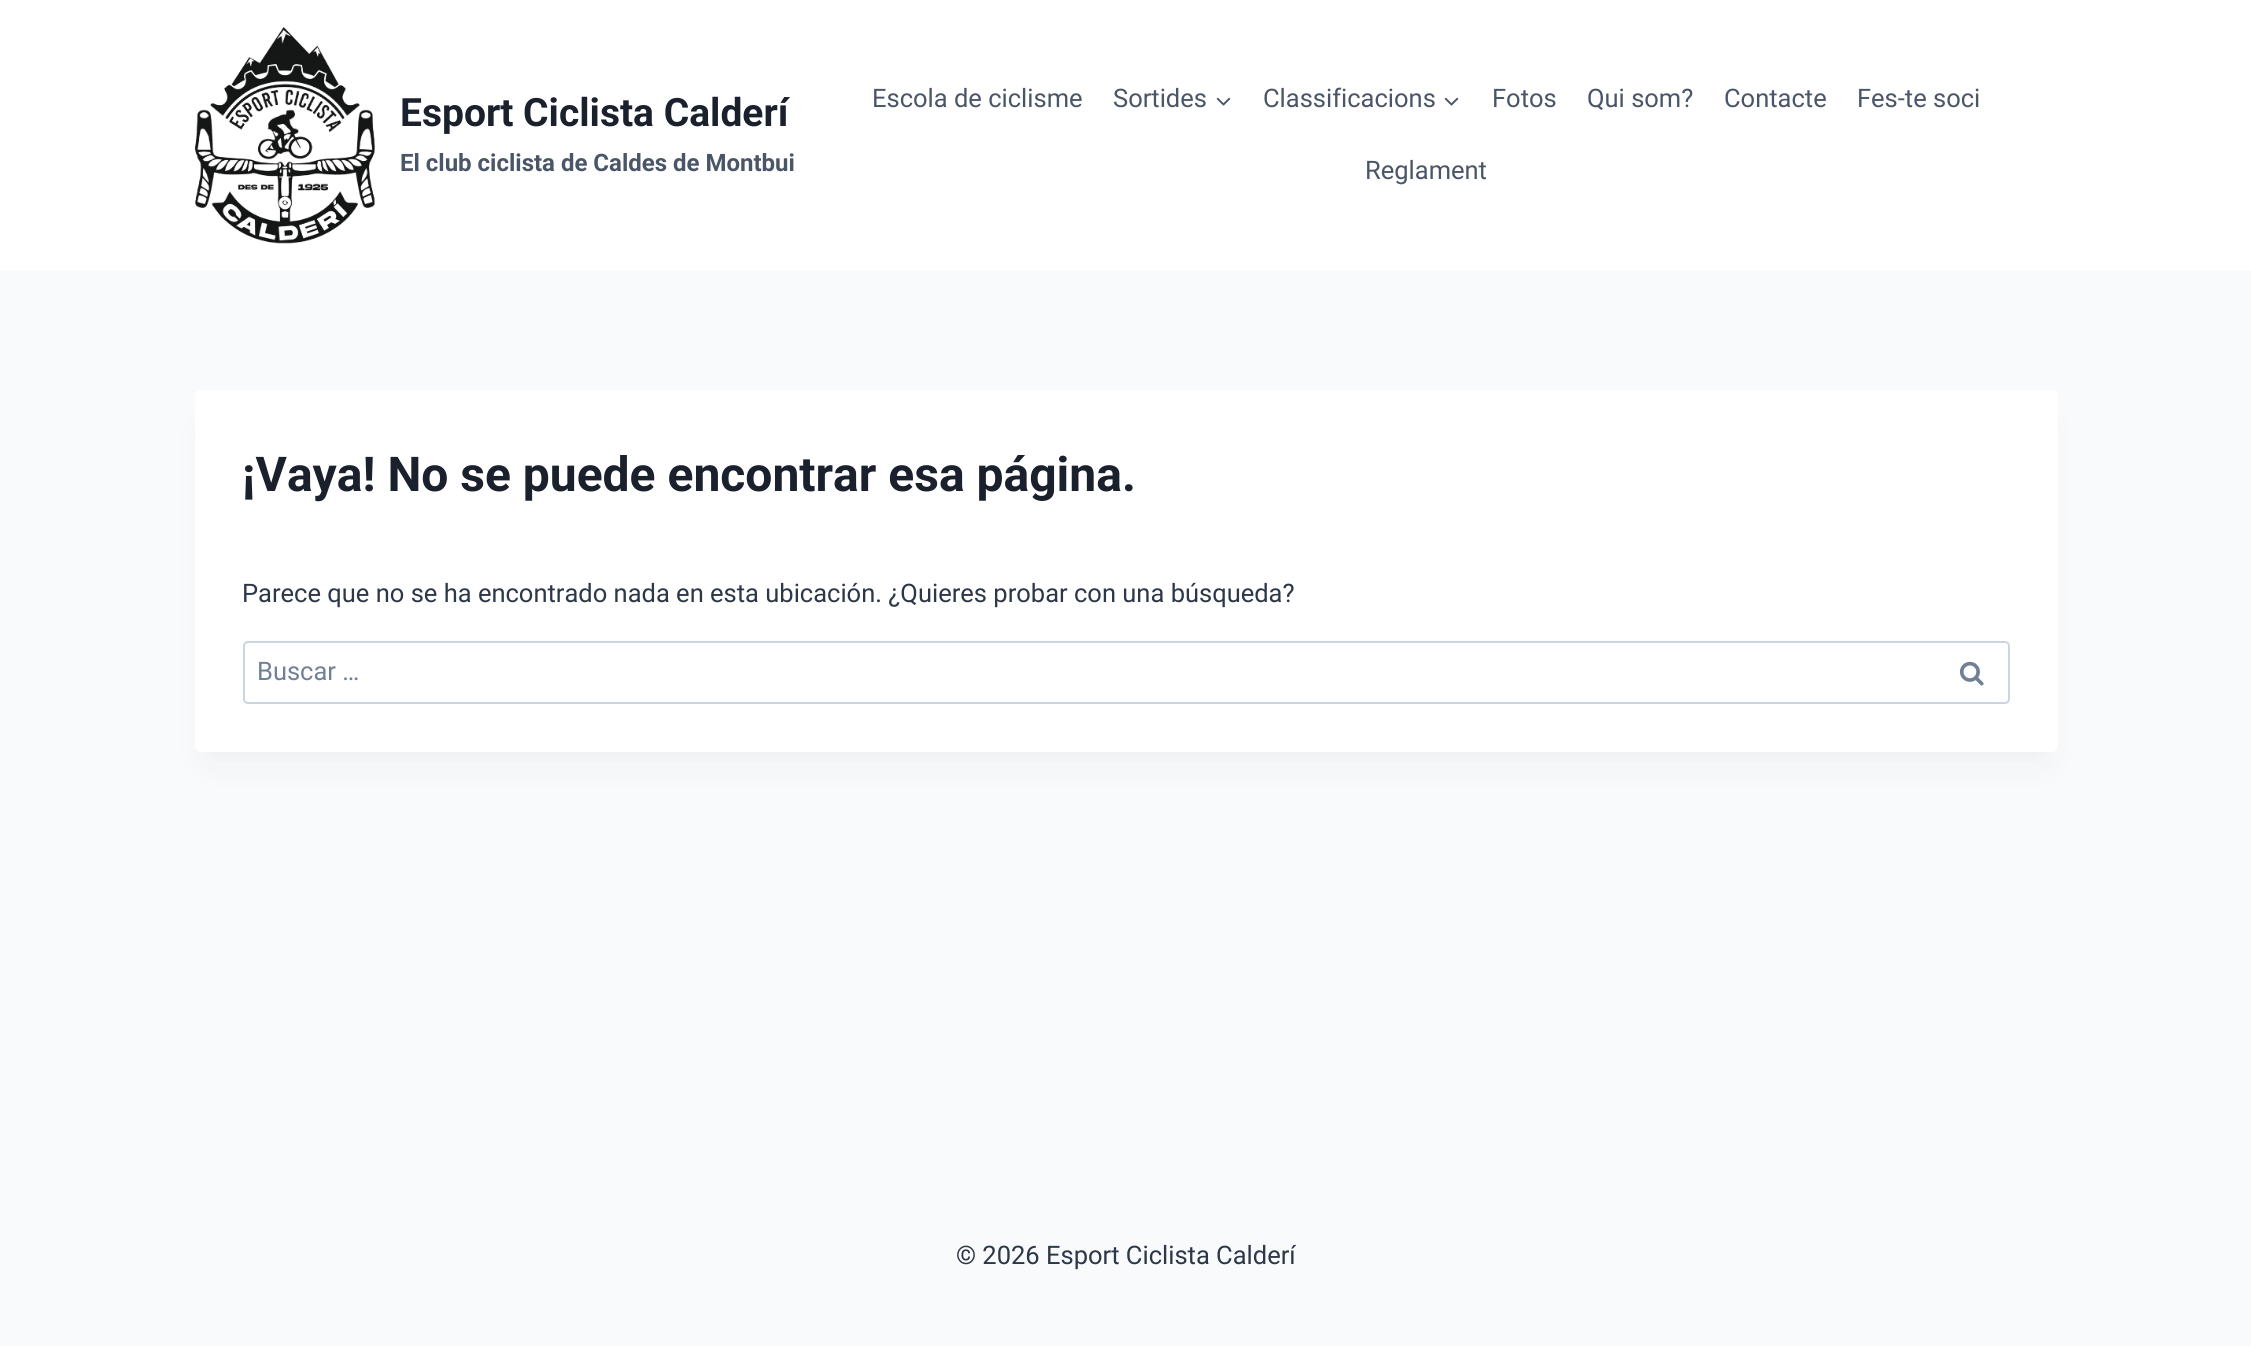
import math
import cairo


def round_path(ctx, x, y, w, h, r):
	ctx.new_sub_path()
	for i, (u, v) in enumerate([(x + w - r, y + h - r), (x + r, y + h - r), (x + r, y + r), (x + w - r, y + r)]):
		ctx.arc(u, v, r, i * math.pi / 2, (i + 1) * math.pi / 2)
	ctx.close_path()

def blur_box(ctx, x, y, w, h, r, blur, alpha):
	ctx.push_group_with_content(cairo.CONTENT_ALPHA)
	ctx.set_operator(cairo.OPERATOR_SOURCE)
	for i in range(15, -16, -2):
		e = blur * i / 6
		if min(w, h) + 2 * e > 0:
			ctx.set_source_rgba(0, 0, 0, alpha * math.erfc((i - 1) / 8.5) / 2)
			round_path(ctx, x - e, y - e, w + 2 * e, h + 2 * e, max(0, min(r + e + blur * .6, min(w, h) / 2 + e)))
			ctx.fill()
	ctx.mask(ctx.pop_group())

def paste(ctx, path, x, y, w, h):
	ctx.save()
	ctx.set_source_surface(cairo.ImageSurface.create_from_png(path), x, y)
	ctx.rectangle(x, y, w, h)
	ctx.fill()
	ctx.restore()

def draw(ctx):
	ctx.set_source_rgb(0.969, 0.98, 0.988)
	ctx.paint()
	ctx.set_source_rgb(1, 1, 1)
	ctx.rectangle(0, 0, 2251, 270)
	ctx.fill()
	paste(ctx, 'media/1.png', 194, 27, 181, 217)
	ctx.select_font_face('Roboto', cairo.FONT_SLANT_NORMAL, cairo.FONT_WEIGHT_BOLD)
	ctx.set_font_size(39)
	ctx.set_source_rgb(0.102, 0.125, 0.173)
	ctx.move_to(400, 126)
	ctx.show_text('Esport Ciclista Calderí')
	ctx.set_font_size(24)
	ctx.set_source_rgb(0.29, 0.333, 0.408)
	ctx.move_to(400, 171)
	ctx.show_text('El club ciclista de Caldes de Montbui')
	ctx.select_font_face('Roboto')
	ctx.set_font_size(25.5)
	ctx.move_to(872, 107)
	ctx.show_text('Escola de ciclisme')
	ctx.move_to(1113, 107)
	ctx.show_text('Sortides')
	paste(ctx, 'media/2.png', 1216, 97, 15, 9)
	ctx.move_to(1263, 107)
	ctx.show_text('Classificacions')
	paste(ctx, 'media/2.png', 1444, 97, 15, 9)
	for x, y, s in [
		(1492, 107, 'Fotos'),
		(1587, 107, 'Qui som?'),
		(1724, 107, 'Contacte'),
		(1857, 107, 'Fes-te soci'),
		(1365, 179, 'Reglament'),
	]:
		ctx.move_to(x, y)
		ctx.show_text(s)
	ctx.set_source_rgb(0, 0, 0)
	blur_box(ctx, 210, 428, 1833, 331, 0, 19, 0.05)
	ctx.set_source_rgb(1, 1, 1)
	round_path(ctx, 195, 390, 1863, 362, 6)
	ctx.fill()
	ctx.select_font_face('Roboto', cairo.FONT_SLANT_NORMAL, cairo.FONT_WEIGHT_BOLD)
	ctx.set_font_size(48)
	ctx.set_source_rgb(0.102, 0.125, 0.173)
	ctx.move_to(242, 491)
	ctx.show_text('¡Vaya! No se puede encontrar esa página.')
	ctx.select_font_face('Roboto')
	ctx.set_font_size(25.5)
	ctx.set_source_rgb(0.176, 0.216, 0.282)
	ctx.move_to(242, 602)
	ctx.show_text('Parece que no se ha encontrado nada en esta ubicación. ¿Quieres probar con una búsqueda?')
	round_path(ctx, 244, 642, 1765, 61, 4)
	ctx.set_source_rgb(0.796, 0.835, 0.878)
	ctx.stroke()
	ctx.set_source_rgb(0.443, 0.502, 0.588)
	ctx.move_to(257, 680)
	ctx.show_text('Buscar …')
	paste(ctx, 'media/3.png', 1959, 661, 25, 25)
	ctx.set_source_rgb(0.176, 0.216, 0.282)
	ctx.move_to(956, 1264)
	ctx.show_text('© 2026 Esport Ciclista Calderí')


surface = cairo.ImageSurface(cairo.FORMAT_RGB24, 2251, 1346)
ctx = cairo.Context(surface)
options = cairo.FontOptions()
options.set_hint_metrics(cairo.HINT_METRICS_OFF)
options.set_hint_style(cairo.HINT_STYLE_NONE)
ctx.set_font_options(options)
ctx.set_miter_limit(4)
draw(ctx)
surface.write_to_png('image.png')
